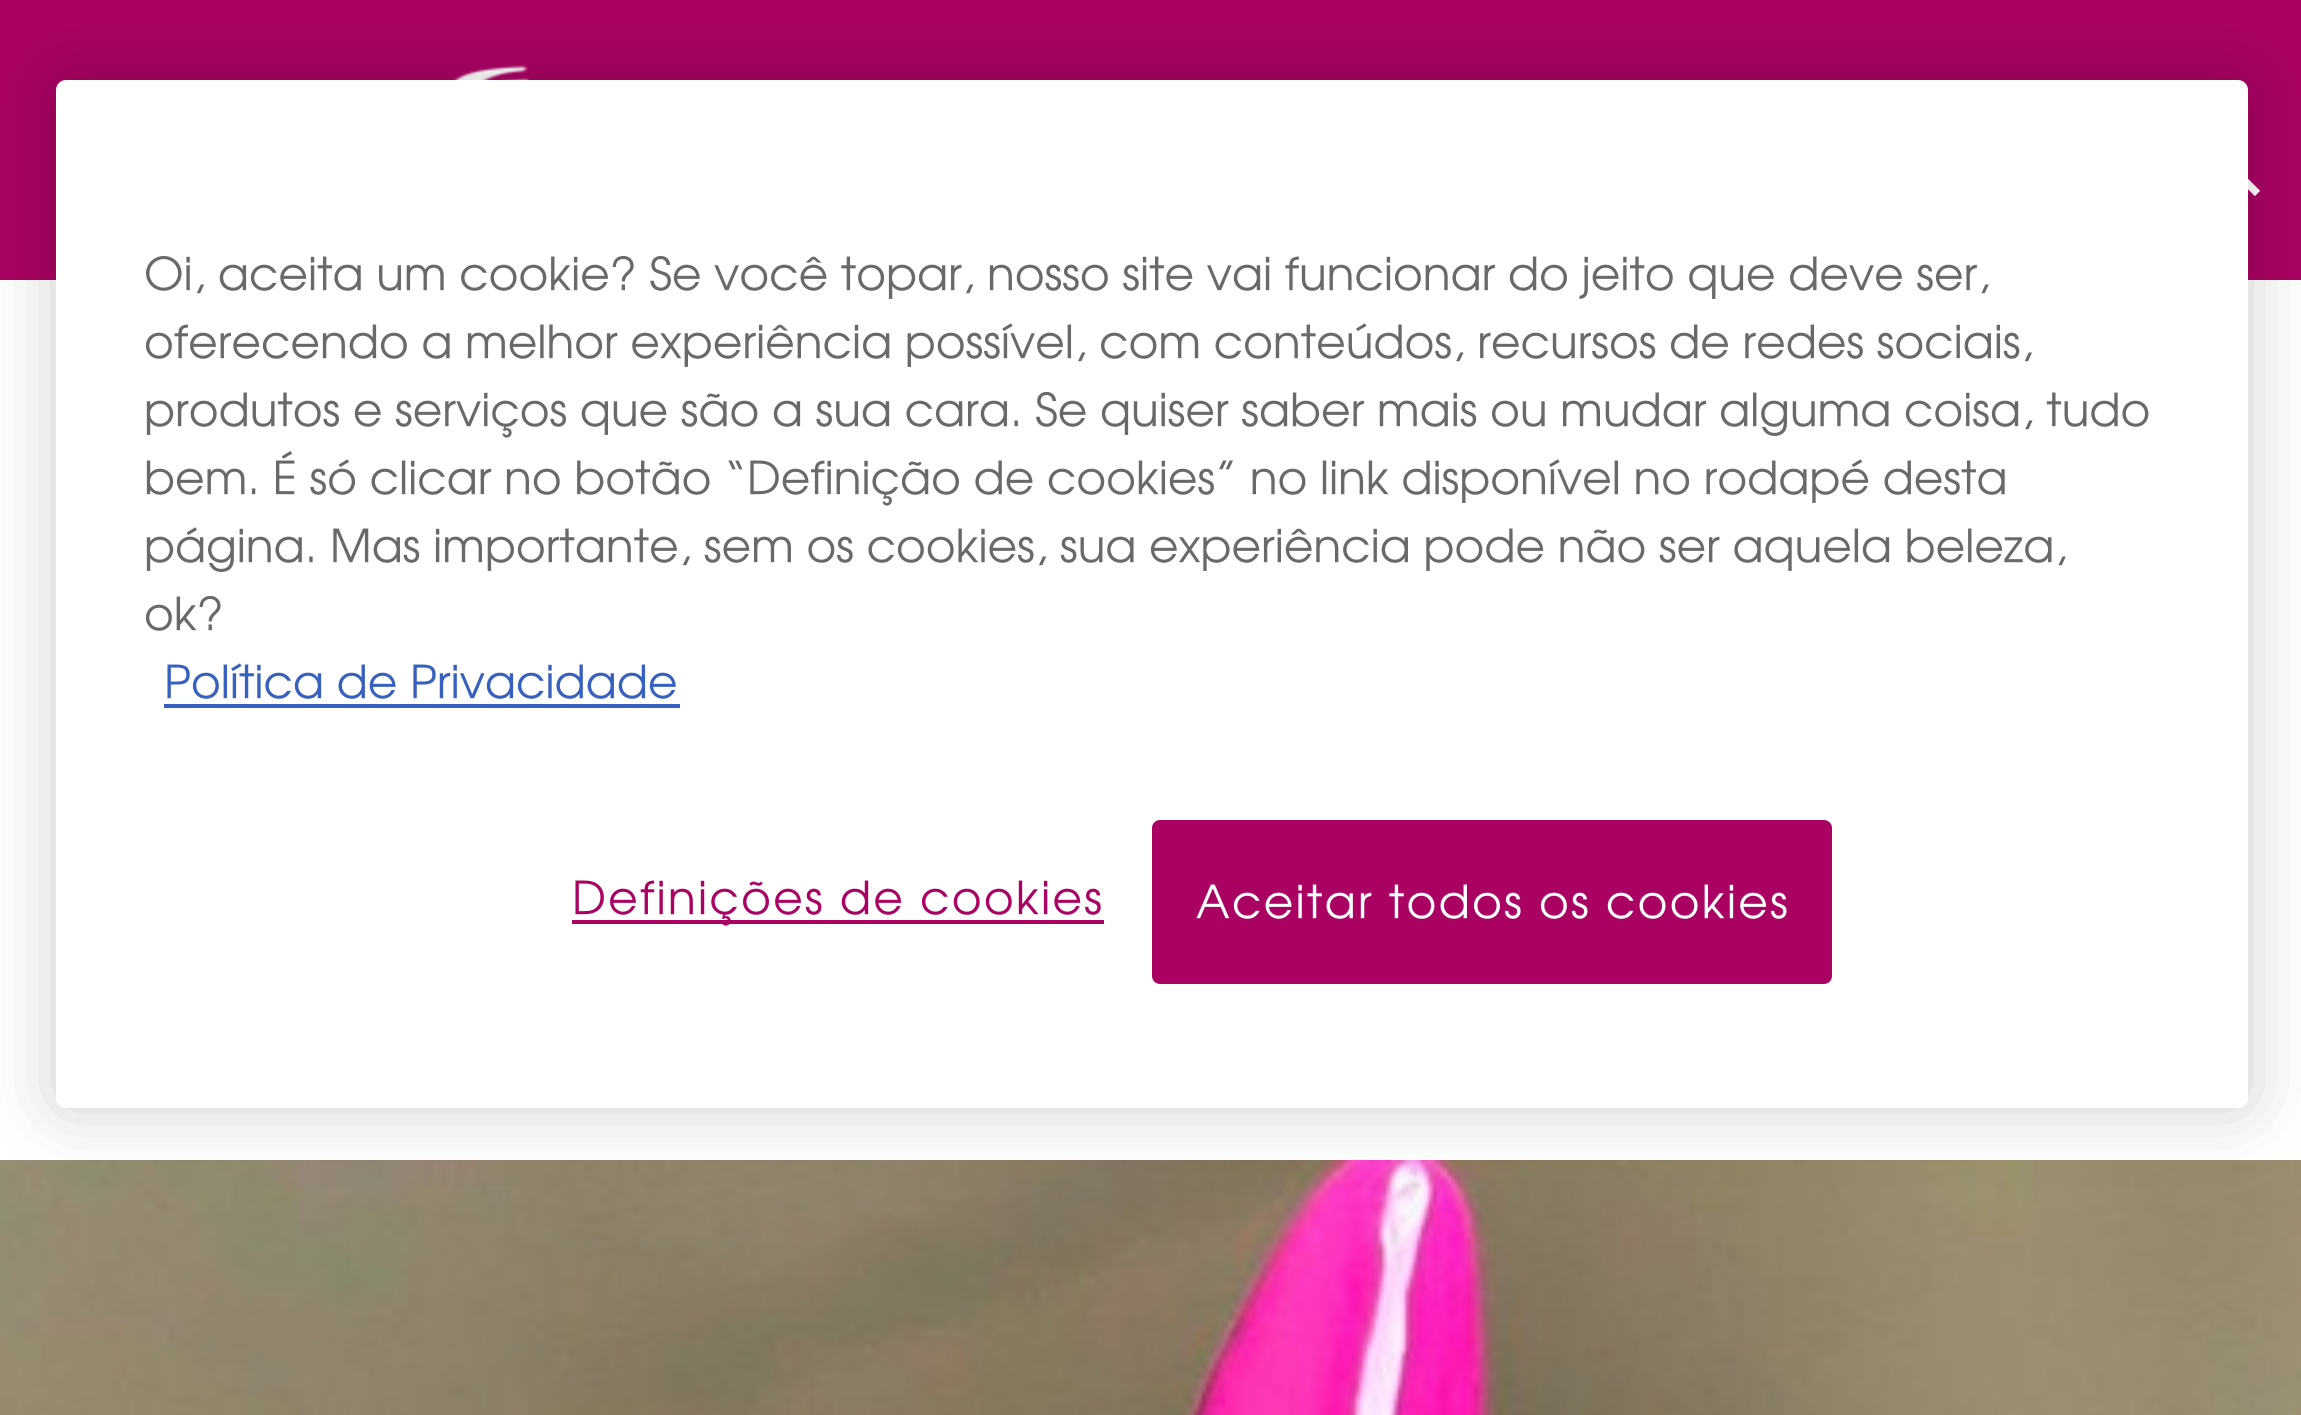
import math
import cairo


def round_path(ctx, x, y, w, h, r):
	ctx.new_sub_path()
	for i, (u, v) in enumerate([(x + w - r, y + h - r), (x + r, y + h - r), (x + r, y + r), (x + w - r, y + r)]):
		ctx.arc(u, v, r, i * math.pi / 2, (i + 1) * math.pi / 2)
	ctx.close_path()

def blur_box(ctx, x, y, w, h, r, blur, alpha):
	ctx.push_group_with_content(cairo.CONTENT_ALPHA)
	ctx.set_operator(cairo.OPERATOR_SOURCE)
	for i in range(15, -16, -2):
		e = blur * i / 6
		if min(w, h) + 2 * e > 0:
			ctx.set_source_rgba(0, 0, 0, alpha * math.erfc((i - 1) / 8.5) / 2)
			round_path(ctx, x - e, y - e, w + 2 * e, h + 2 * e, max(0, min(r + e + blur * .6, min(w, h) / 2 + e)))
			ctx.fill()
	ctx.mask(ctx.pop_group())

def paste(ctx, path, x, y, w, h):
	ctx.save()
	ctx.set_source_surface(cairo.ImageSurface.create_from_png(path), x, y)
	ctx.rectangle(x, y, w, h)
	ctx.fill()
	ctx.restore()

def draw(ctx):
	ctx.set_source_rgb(1, 1, 1)
	ctx.paint()
	ctx.set_source_rgb(0.667, 0.008, 0.388)
	ctx.rectangle(0, 0, 2301, 280)
	ctx.fill()
	paste(ctx, 'media/1.png', 453, 65, 77, 15)
	ctx.new_path()
	ctx.move_to(2230, 166)
	ctx.line_to(2257.5, 193.5)
	ctx.set_source_rgb(1, 1, 1)
	ctx.set_line_width(7.5)
	ctx.stroke()
	paste(ctx, 'media/2.png', 0, 1160, 2301, 255)
	ctx.save()
	ctx.set_fill_rule(cairo.FILL_RULE_EVEN_ODD)
	ctx.new_path()
	ctx.move_to(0, 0)
	ctx.line_to(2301, 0)
	ctx.line_to(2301, 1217)
	ctx.line_to(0, 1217)
	ctx.close_path()
	ctx.move_to(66, 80)
	ctx.line_to(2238, 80)
	ctx.curve_to(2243.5, 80, 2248, 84.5, 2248, 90)
	ctx.line_to(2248, 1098)
	ctx.curve_to(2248, 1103.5, 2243.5, 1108, 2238, 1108)
	ctx.line_to(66, 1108)
	ctx.curve_to(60.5, 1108, 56, 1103.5, 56, 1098)
	ctx.line_to(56, 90)
	ctx.curve_to(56, 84.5, 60.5, 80, 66, 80)
	ctx.close_path()
	ctx.clip()
	ctx.set_source_rgb(0, 0, 0)
	blur_box(ctx, 56, 80, 2192, 1028, 10, 36, 0.2)
	ctx.restore()
	round_path(ctx, 56, 80, 2192, 1028, 10)
	ctx.fill()
	paste(ctx, 'media/3.png', 146, 255, 1843, 44)
	paste(ctx, 'media/4.png', 145, 323, 1887, 44)
	paste(ctx, 'media/5.png', 146, 391, 2003, 47)
	paste(ctx, 'media/6.png', 146, 451, 1859, 55)
	paste(ctx, 'media/7.png', 146, 527, 1920, 45)
	paste(ctx, 'media/8.png', 145, 595, 76, 36)
	paste(ctx, 'media/9.png', 167, 663, 509, 36)
	ctx.set_source_rgb(0.22, 0.376, 0.745)
	ctx.rectangle(164, 704, 516, 4)
	ctx.fill()
	ctx.set_source_rgb(0.667, 0.008, 0.388)
	ctx.rectangle(572, 920, 532, 4)
	ctx.fill()
	paste(ctx, 'media/10.png', 575, 880, 526, 46)
	round_path(ctx, 1154, 822, 676, 160, 6)
	ctx.fill_preserve()
	ctx.set_line_width(4)
	ctx.stroke()
	paste(ctx, 'media/11.png', 1196, 884, 591, 35)


surface = cairo.ImageSurface(cairo.FORMAT_RGB24, 2301, 1415)
ctx = cairo.Context(surface)
options = cairo.FontOptions()
options.set_hint_metrics(cairo.HINT_METRICS_OFF)
options.set_hint_style(cairo.HINT_STYLE_NONE)
ctx.set_font_options(options)
ctx.set_miter_limit(4)
draw(ctx)
surface.write_to_png('image.png')
